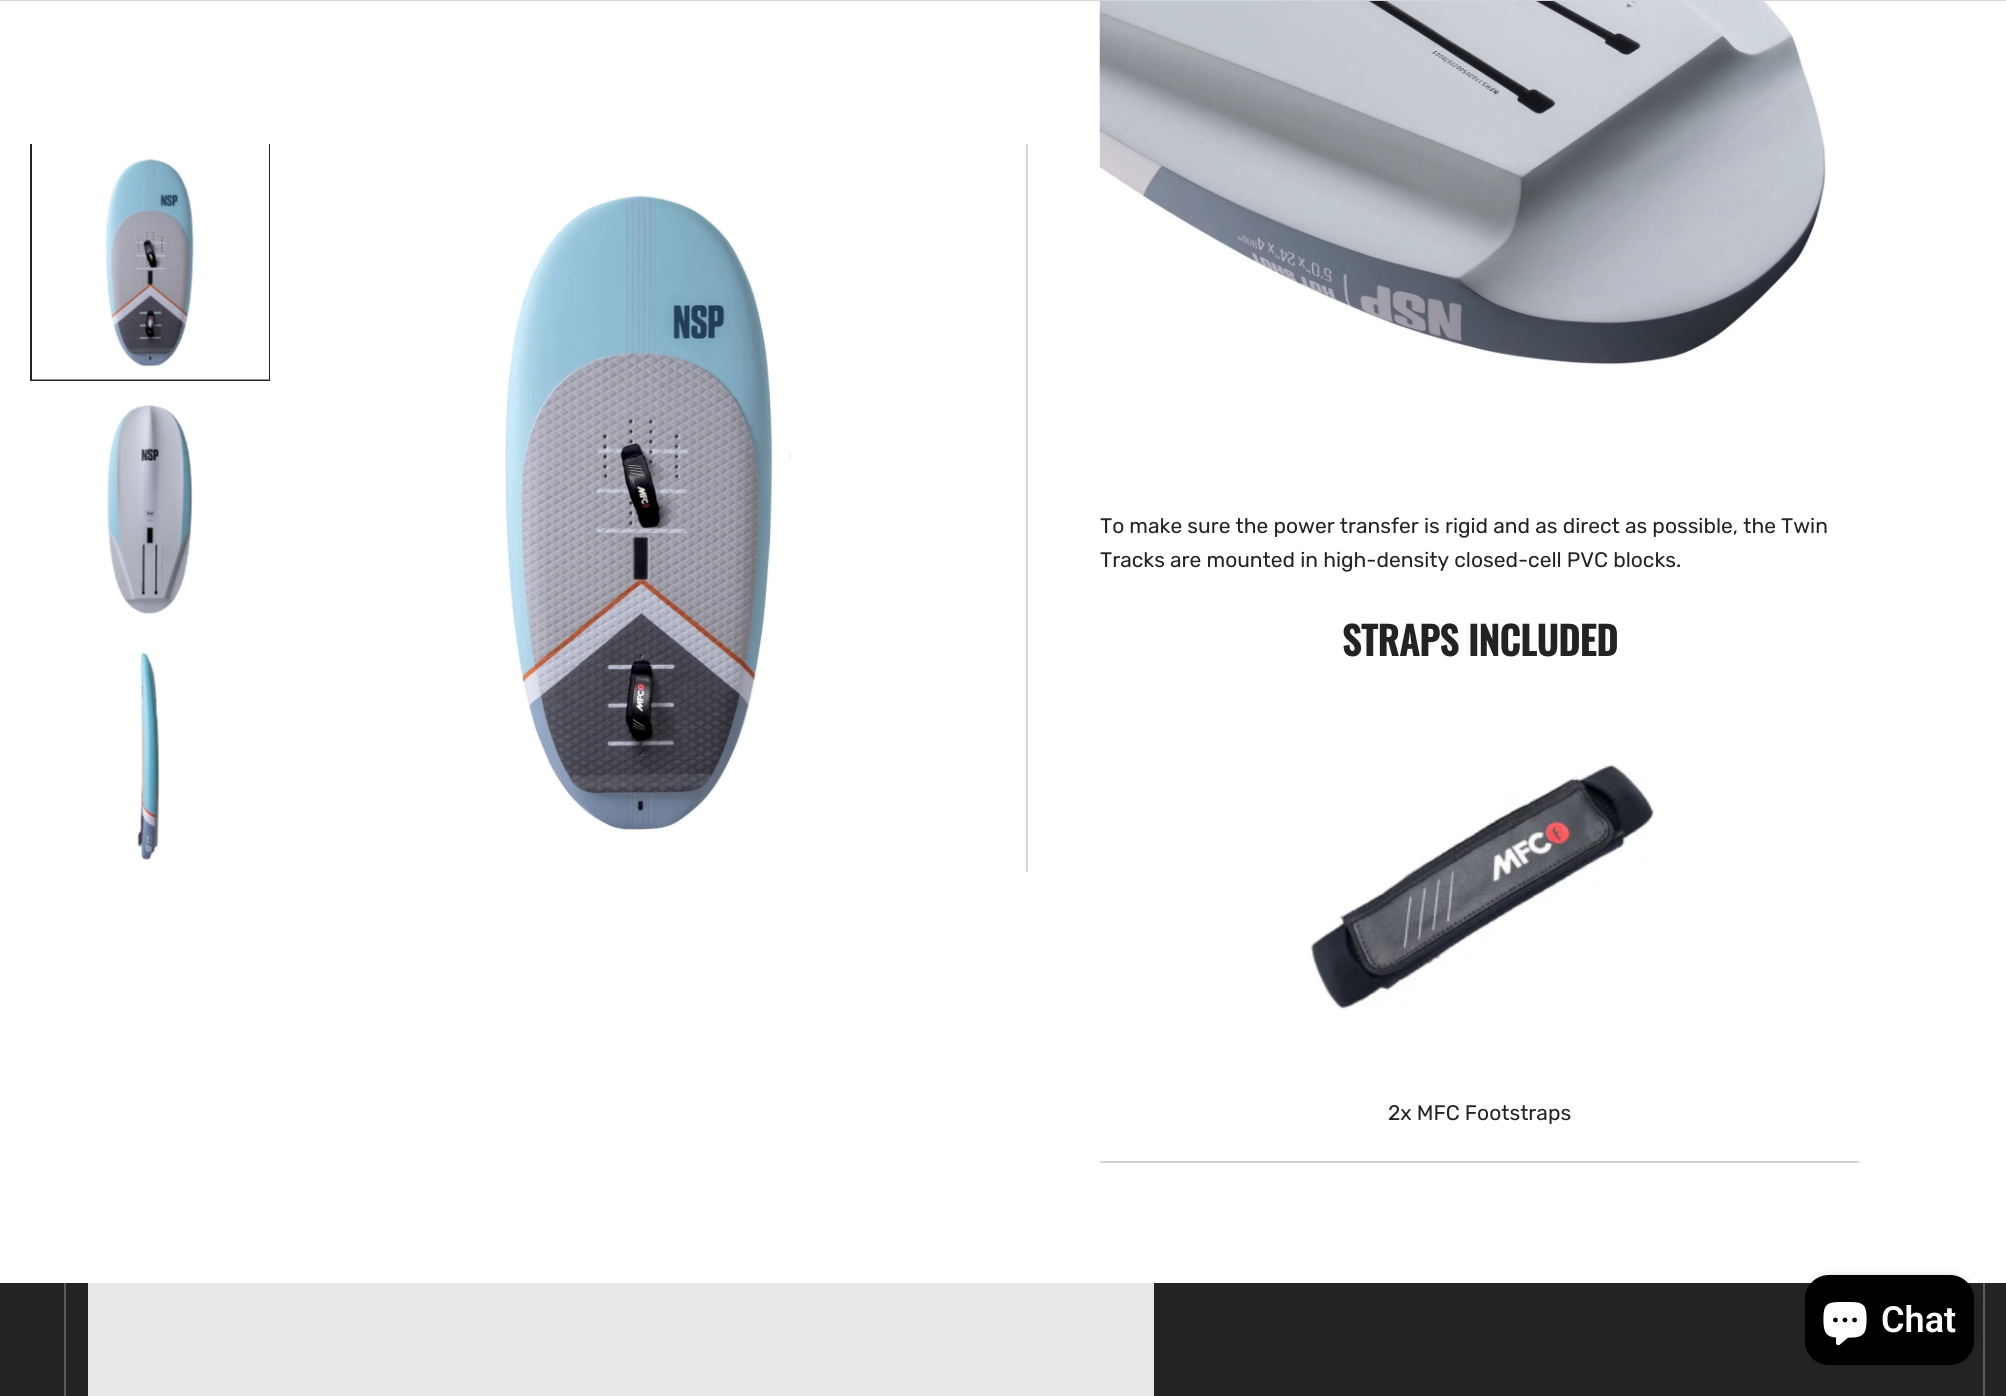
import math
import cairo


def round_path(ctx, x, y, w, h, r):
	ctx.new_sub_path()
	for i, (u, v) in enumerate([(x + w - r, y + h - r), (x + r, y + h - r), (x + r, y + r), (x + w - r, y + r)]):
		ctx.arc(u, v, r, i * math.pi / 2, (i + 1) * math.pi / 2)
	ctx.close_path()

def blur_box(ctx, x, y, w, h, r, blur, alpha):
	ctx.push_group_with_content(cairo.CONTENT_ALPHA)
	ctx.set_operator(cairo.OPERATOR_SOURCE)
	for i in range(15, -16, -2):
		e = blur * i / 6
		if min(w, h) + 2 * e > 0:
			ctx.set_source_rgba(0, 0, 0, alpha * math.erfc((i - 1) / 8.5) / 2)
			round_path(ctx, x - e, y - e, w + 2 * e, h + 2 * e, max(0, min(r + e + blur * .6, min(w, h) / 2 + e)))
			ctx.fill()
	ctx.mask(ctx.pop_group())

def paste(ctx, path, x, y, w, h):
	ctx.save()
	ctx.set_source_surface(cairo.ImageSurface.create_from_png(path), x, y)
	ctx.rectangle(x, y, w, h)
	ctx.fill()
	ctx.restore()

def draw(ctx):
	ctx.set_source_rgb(1, 1, 1)
	ctx.paint()
	ctx.set_source_rgb(0.835, 0.835, 0.835)
	ctx.rectangle(0, 0, 2006, 1)
	ctx.fill()
	ctx.save()
	ctx.rectangle(30, 144, 240, 728)
	ctx.clip()
	ctx.rectangle(31, 142, 238, 238)
	ctx.set_source_rgb(0.137, 0.137, 0.133)
	ctx.stroke()
	ctx.restore()
	paste(ctx, 'media/1.png', 32, 144, 237, 236)
	paste(ctx, 'media/2.png', 107, 405, 86, 209)
	paste(ctx, 'media/3.png', 137, 652, 23, 208)
	paste(ctx, 'media/4.png', 505, 195, 286, 636)
	ctx.rectangle(1026, 144, 2, 728)
	ctx.fill()
	ctx.rectangle(1100, 1161, 759, 2)
	ctx.fill()
	paste(ctx, 'media/5.png', 1099, 1, 727, 364)
	ctx.select_font_face('Rubik')
	ctx.set_font_size(21)
	ctx.set_source_rgb(0.137, 0.137, 0.133)
	ctx.move_to(1100, 533)
	ctx.show_text('To make sure the power transfer is rigid and as direct as possible, the Twin')
	ctx.move_to(1100, 567)
	ctx.show_text('Tracks are mounted in high-density closed-cell PVC blocks.')
	ctx.select_font_face('Oswald', cairo.FONT_SLANT_NORMAL, cairo.FONT_WEIGHT_BOLD)
	ctx.set_font_size(38.5)
	ctx.move_to(1342, 656)
	ctx.show_text('STRAPS INCLUDED')
	paste(ctx, 'media/6.png', 1310, 761, 347, 248)
	ctx.select_font_face('Rubik')
	ctx.set_font_size(21)
	ctx.move_to(1388, 1120)
	ctx.show_text('2x MFC Footstraps')
	ctx.rectangle(1154, 1283, 852, 113)
	ctx.rectangle(0, 1283, 88, 113)
	ctx.fill()
	ctx.set_source_rgb(0.361, 0.361, 0.357)
	ctx.rectangle(64, 1283, 2, 113)
	ctx.fill()
	ctx.set_source_rgb(0.914, 0.914, 0.914)
	ctx.rectangle(88, 1283, 1066, 113)
	ctx.fill()
	ctx.set_source_rgb(0.361, 0.361, 0.357)
	ctx.rectangle(1983, 1283, 2, 113)
	ctx.fill()
	ctx.set_source_rgb(0, 0, 0)
	blur_box(ctx, 1805, 1275, 169, 90, 24, 4, 0.15)
	ctx.set_source_rgb(0, 0, 0)
	round_path(ctx, 1805, 1275, 169, 90, 24)
	ctx.fill()
	paste(ctx, 'media/7.png', 1823, 1302, 44, 44)
	ctx.select_font_face('Roboto SemiBold')
	ctx.set_font_size(36)
	ctx.set_source_rgb(1, 1, 1)
	ctx.move_to(1881, 1332)
	ctx.show_text('Chat')


surface = cairo.ImageSurface(cairo.FORMAT_RGB24, 2006, 1396)
ctx = cairo.Context(surface)
options = cairo.FontOptions()
options.set_hint_metrics(cairo.HINT_METRICS_OFF)
options.set_hint_style(cairo.HINT_STYLE_NONE)
ctx.set_font_options(options)
ctx.set_miter_limit(4)
draw(ctx)
surface.write_to_png('image.png')
